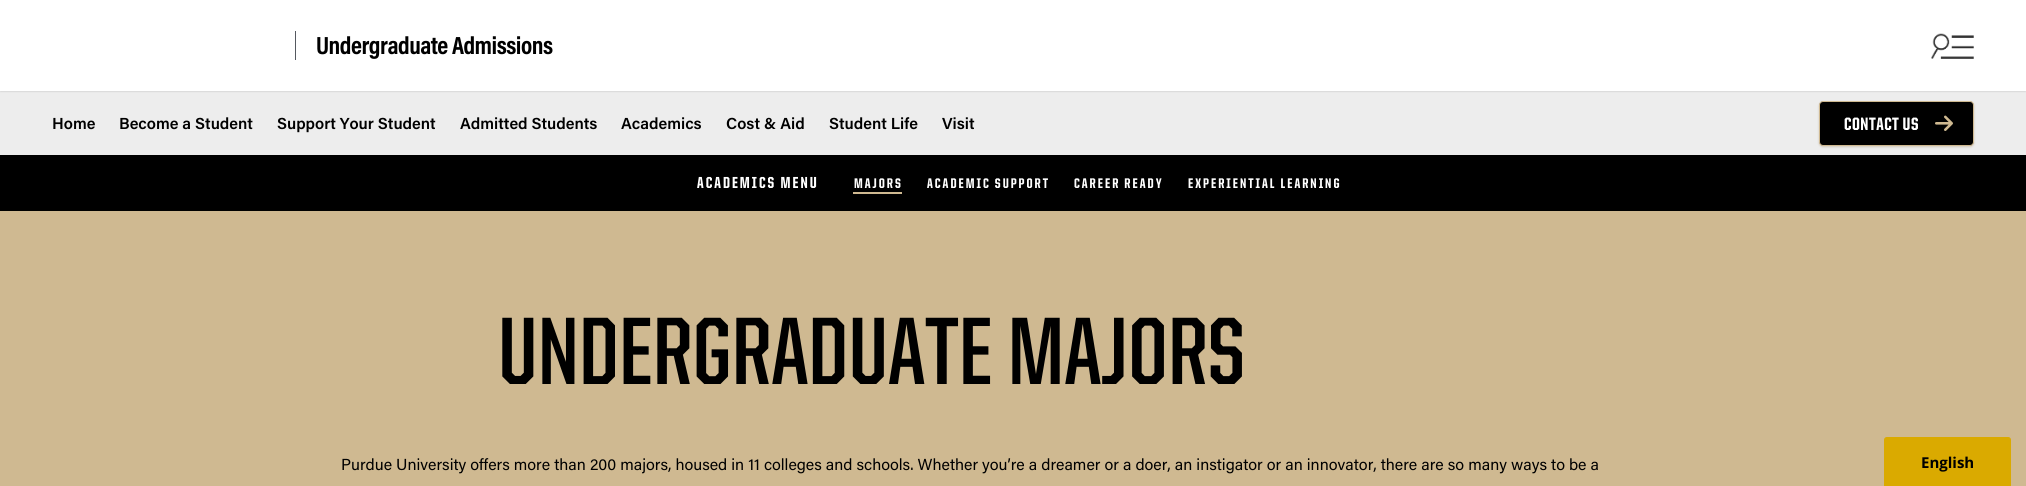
import math
import cairo


def write_spaced(ctx, x, y, s, letter, word):
	ctx.move_to(x, y)
	for ch in s:
		ctx.show_text(ch)
		ctx.rel_move_to(letter + word * (ch == ' '), 0)

def round_path(ctx, x, y, w, h, r):
	ctx.new_sub_path()
	for i, (u, v) in enumerate([(x + w - r, y + h - r), (x + r, y + h - r), (x + r, y + r), (x + w - r, y + r)]):
		ctx.arc(u, v, r, i * math.pi / 2, (i + 1) * math.pi / 2)
	ctx.close_path()

def blur_box(ctx, x, y, w, h, r, blur, alpha):
	ctx.push_group_with_content(cairo.CONTENT_ALPHA)
	ctx.set_operator(cairo.OPERATOR_SOURCE)
	for i in range(15, -16, -2):
		e = blur * i / 6
		if min(w, h) + 2 * e > 0:
			ctx.set_source_rgba(0, 0, 0, alpha * math.erfc((i - 1) / 8.5) / 2)
			round_path(ctx, x - e, y - e, w + 2 * e, h + 2 * e, max(0, min(r + e + blur * .6, min(w, h) / 2 + e)))
			ctx.fill()
	ctx.mask(ctx.pop_group())

def paste(ctx, path, x, y, w, h):
	ctx.save()
	ctx.set_source_surface(cairo.ImageSurface.create_from_png(path), x, y)
	ctx.rectangle(x, y, w, h)
	ctx.fill()
	ctx.restore()

def draw(ctx):
	ctx.set_source_rgb(0.812, 0.725, 0.569)
	ctx.paint()
	ctx.set_source_rgb(0, 0, 0)
	ctx.rectangle(0, 155, 2026, 56)
	ctx.fill()
	ctx.set_source_rgb(0, 0, 0)
	blur_box(ctx, 0, 91, 2026, 64, 0, 1, 0.2)
	ctx.set_source_rgb(0.929, 0.929, 0.929)
	ctx.rectangle(0, 91, 2026, 64)
	ctx.fill()
	ctx.set_source_rgb(0, 0, 0)
	blur_box(ctx, 0, 0, 2026, 91, 0, 1, 0.2)
	ctx.set_source_rgb(1, 1, 1)
	ctx.rectangle(0, 0, 2026, 91)
	ctx.fill()
	ctx.set_source_rgb(0.333, 0.349, 0.376)
	ctx.rectangle(295, 31, 1, 29)
	ctx.fill()
	ctx.select_font_face('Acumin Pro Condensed', cairo.FONT_SLANT_NORMAL, cairo.FONT_WEIGHT_BOLD)
	ctx.set_font_size(25)
	ctx.set_source_rgb(0, 0, 0)
	write_spaced(ctx, 316, 54, 'Undergraduate Admissions', -0.5, 0)
	paste(ctx, 'media/1.png', 1931, 33, 43, 26)
	ctx.select_font_face('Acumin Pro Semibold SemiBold')
	ctx.set_font_size(16)
	for x, y, s in [
		(52, 129, 'Home'),
		(119, 129, 'Become a Student'),
		(277, 129, 'Support Your Student'),
		(460, 129, 'Admitted Students'),
		(621, 129, 'Academics'),
		(726, 129, 'Cost & Aid'),
		(829, 129, 'Student Life'),
		(942, 129, 'Visit'),
	]:
		ctx.move_to(x, y)
		ctx.show_text(s)
	ctx.set_source_rgb(0.557, 0.435, 0.243)
	blur_box(ctx, 1819, 102, 155, 45, 4, 1, 0.3)
	ctx.set_source_rgb(0, 0, 0)
	round_path(ctx, 1819.5, 101.5, 154, 44, 3.5)
	ctx.fill_preserve()
	ctx.set_source_rgb(0.812, 0.725, 0.569)
	ctx.set_line_width(1)
	ctx.stroke()
	ctx.select_font_face('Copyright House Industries', cairo.FONT_SLANT_NORMAL, cairo.FONT_WEIGHT_BOLD)
	ctx.set_font_size(18)
	ctx.set_source_rgb(1, 1, 1)
	write_spaced(ctx, 1844, 130, 'CONTACT US', 0.5, 0)
	paste(ctx, 'media/2.png', 1935, 115, 18, 16)
	ctx.set_font_size(16)
	write_spaced(ctx, 697, 188, 'ACADEMICS MENU', 2, 0)
	ctx.set_font_size(14)
	write_spaced(ctx, 854, 188, 'MAJORS', 2, 0)
	ctx.set_source_rgb(0.812, 0.725, 0.569)
	ctx.rectangle(853, 192, 49, 2)
	ctx.fill()
	ctx.set_source_rgb(1, 1, 1)
	for x, y, s in [
		(927, 188, 'ACADEMIC SUPPORT'),
		(1074, 188, 'CAREER READY'),
		(1188, 188, 'EXPERIENTIAL LEARNING'),
	]:
		write_spaced(ctx, x, y, s, 2, 0)
	ctx.select_font_face('Copyright House Industries SemiBold')
	ctx.set_font_size(96)
	ctx.set_source_rgb(0, 0, 0)
	ctx.move_to(498, 384)
	ctx.show_text('UNDERGRADUATE MAJORS')
	ctx.select_font_face('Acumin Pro')
	ctx.set_font_size(16)
	ctx.move_to(341, 470)
	ctx.show_text('Purdue University offers more than 200 majors, housed in 11 colleges and schools. Whether you’re a dreamer or a doer, an instigator or an innovator, there are so many ways to be a')
	ctx.set_source_rgb(0.855, 0.667, 0)
	ctx.new_path()
	ctx.move_to(1887, 437.5)
	ctx.line_to(2008, 437.5)
	ctx.curve_to(2009.5, 437.5, 2010.5, 438.5, 2010.5, 440)
	ctx.line_to(2010.5, 485.5)
	ctx.line_to(1884.5, 485.5)
	ctx.line_to(1884.5, 440)
	ctx.curve_to(1884.5, 438.5, 1885.5, 437.5, 1887, 437.5)
	ctx.close_path()
	ctx.fill_preserve()
	ctx.stroke()
	ctx.select_font_face('Open Sans', cairo.FONT_SLANT_NORMAL, cairo.FONT_WEIGHT_BOLD)
	ctx.set_font_size(15)
	ctx.set_source_rgb(0, 0, 0)
	ctx.move_to(1921, 468)
	ctx.show_text('English')


surface = cairo.ImageSurface(cairo.FORMAT_RGB24, 2026, 486)
ctx = cairo.Context(surface)
options = cairo.FontOptions()
options.set_hint_metrics(cairo.HINT_METRICS_OFF)
options.set_hint_style(cairo.HINT_STYLE_NONE)
ctx.set_font_options(options)
ctx.set_miter_limit(4)
draw(ctx)
surface.write_to_png('image.png')
